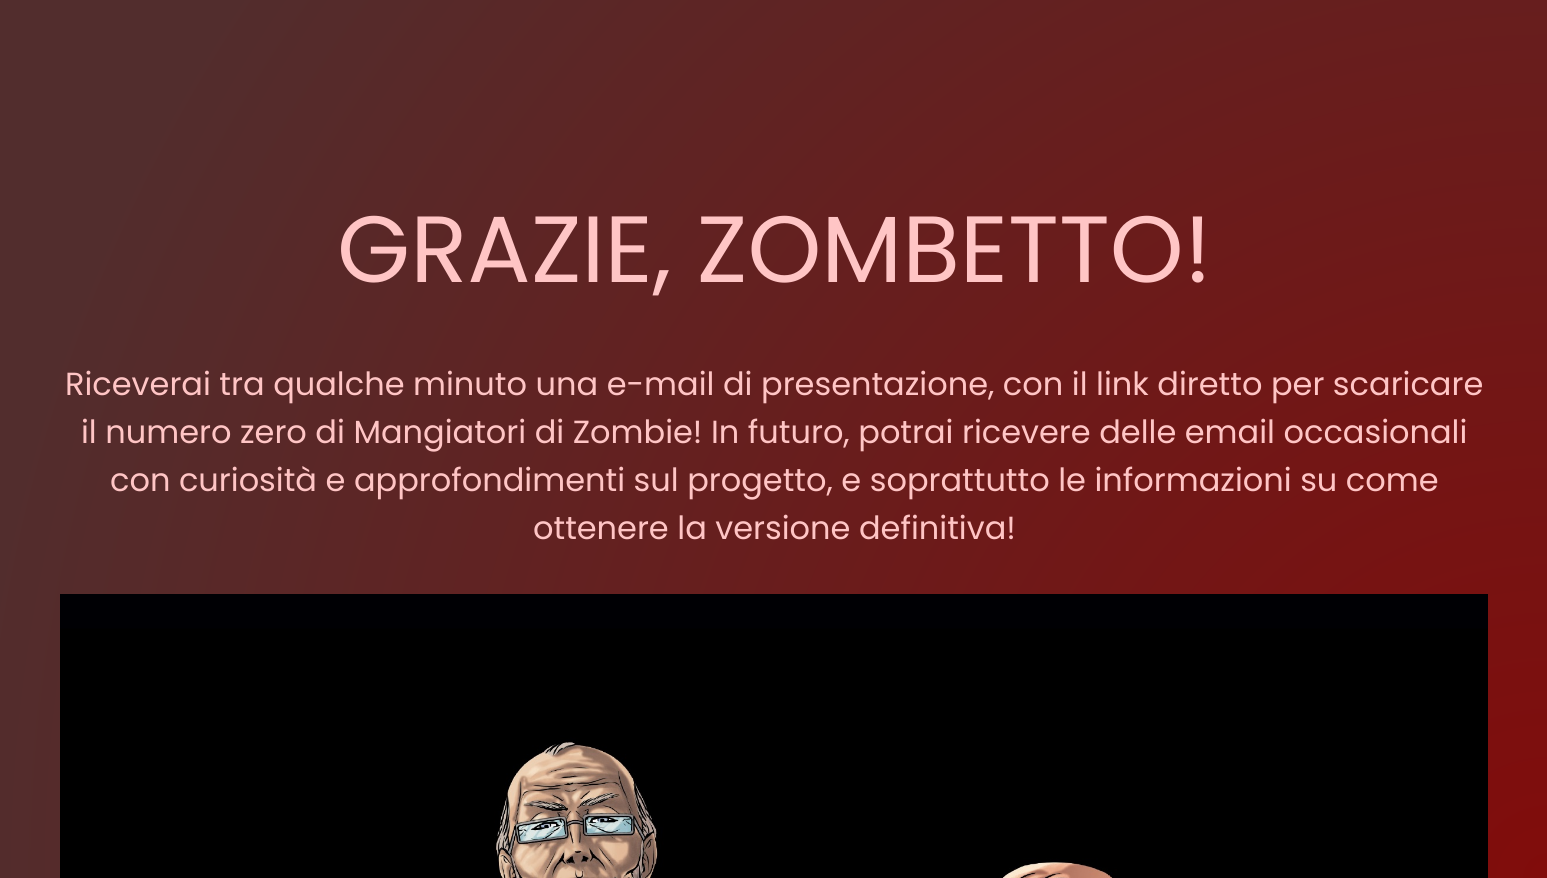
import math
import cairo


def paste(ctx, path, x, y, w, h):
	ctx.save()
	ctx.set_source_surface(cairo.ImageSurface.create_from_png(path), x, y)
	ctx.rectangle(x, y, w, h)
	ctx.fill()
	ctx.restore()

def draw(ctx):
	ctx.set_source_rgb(1, 1, 1)
	ctx.paint()
	gradient = cairo.RadialGradient(1548, 878, 0, 1548, 878, 1780)
	gradient.add_color_stop_rgba(0, 0.506, 0.047, 0.043, 1)
	gradient.add_color_stop_rgba(0.89, 0.322, 0.176, 0.176, 1)
	ctx.set_source(gradient)
	ctx.rectangle(0, 0, 1547, 878)
	ctx.fill()
	ctx.select_font_face('Poppins')
	ctx.set_font_size(94)
	ctx.set_source_rgb(1, 0.773, 0.773)
	ctx.move_to(337, 282)
	ctx.show_text('GRAZIE, ZOMBETTO!')
	ctx.set_font_size(32)
	for x, y, s in [
		(65, 395, 'Riceverai tra qualche minuto una e-mail di presentazione, con il link diretto per scaricare'),
		(81, 443, 'il numero zero di Mangiatori di Zombie! In futuro, potrai ricevere delle email occasionali'),
		(110, 491, 'con curiosità e approfondimenti sul progetto, e soprattutto le informazioni su come'),
		(533, 539, 'ottenere la versione definitiva!'),
	]:
		ctx.move_to(x, y)
		ctx.show_text(s)
	paste(ctx, 'media/1.png', 60, 594, 1428, 284)


surface = cairo.ImageSurface(cairo.FORMAT_RGB24, 1547, 878)
ctx = cairo.Context(surface)
options = cairo.FontOptions()
options.set_hint_metrics(cairo.HINT_METRICS_OFF)
options.set_hint_style(cairo.HINT_STYLE_NONE)
ctx.set_font_options(options)
ctx.set_miter_limit(4)
draw(ctx)
surface.write_to_png('image.png')
